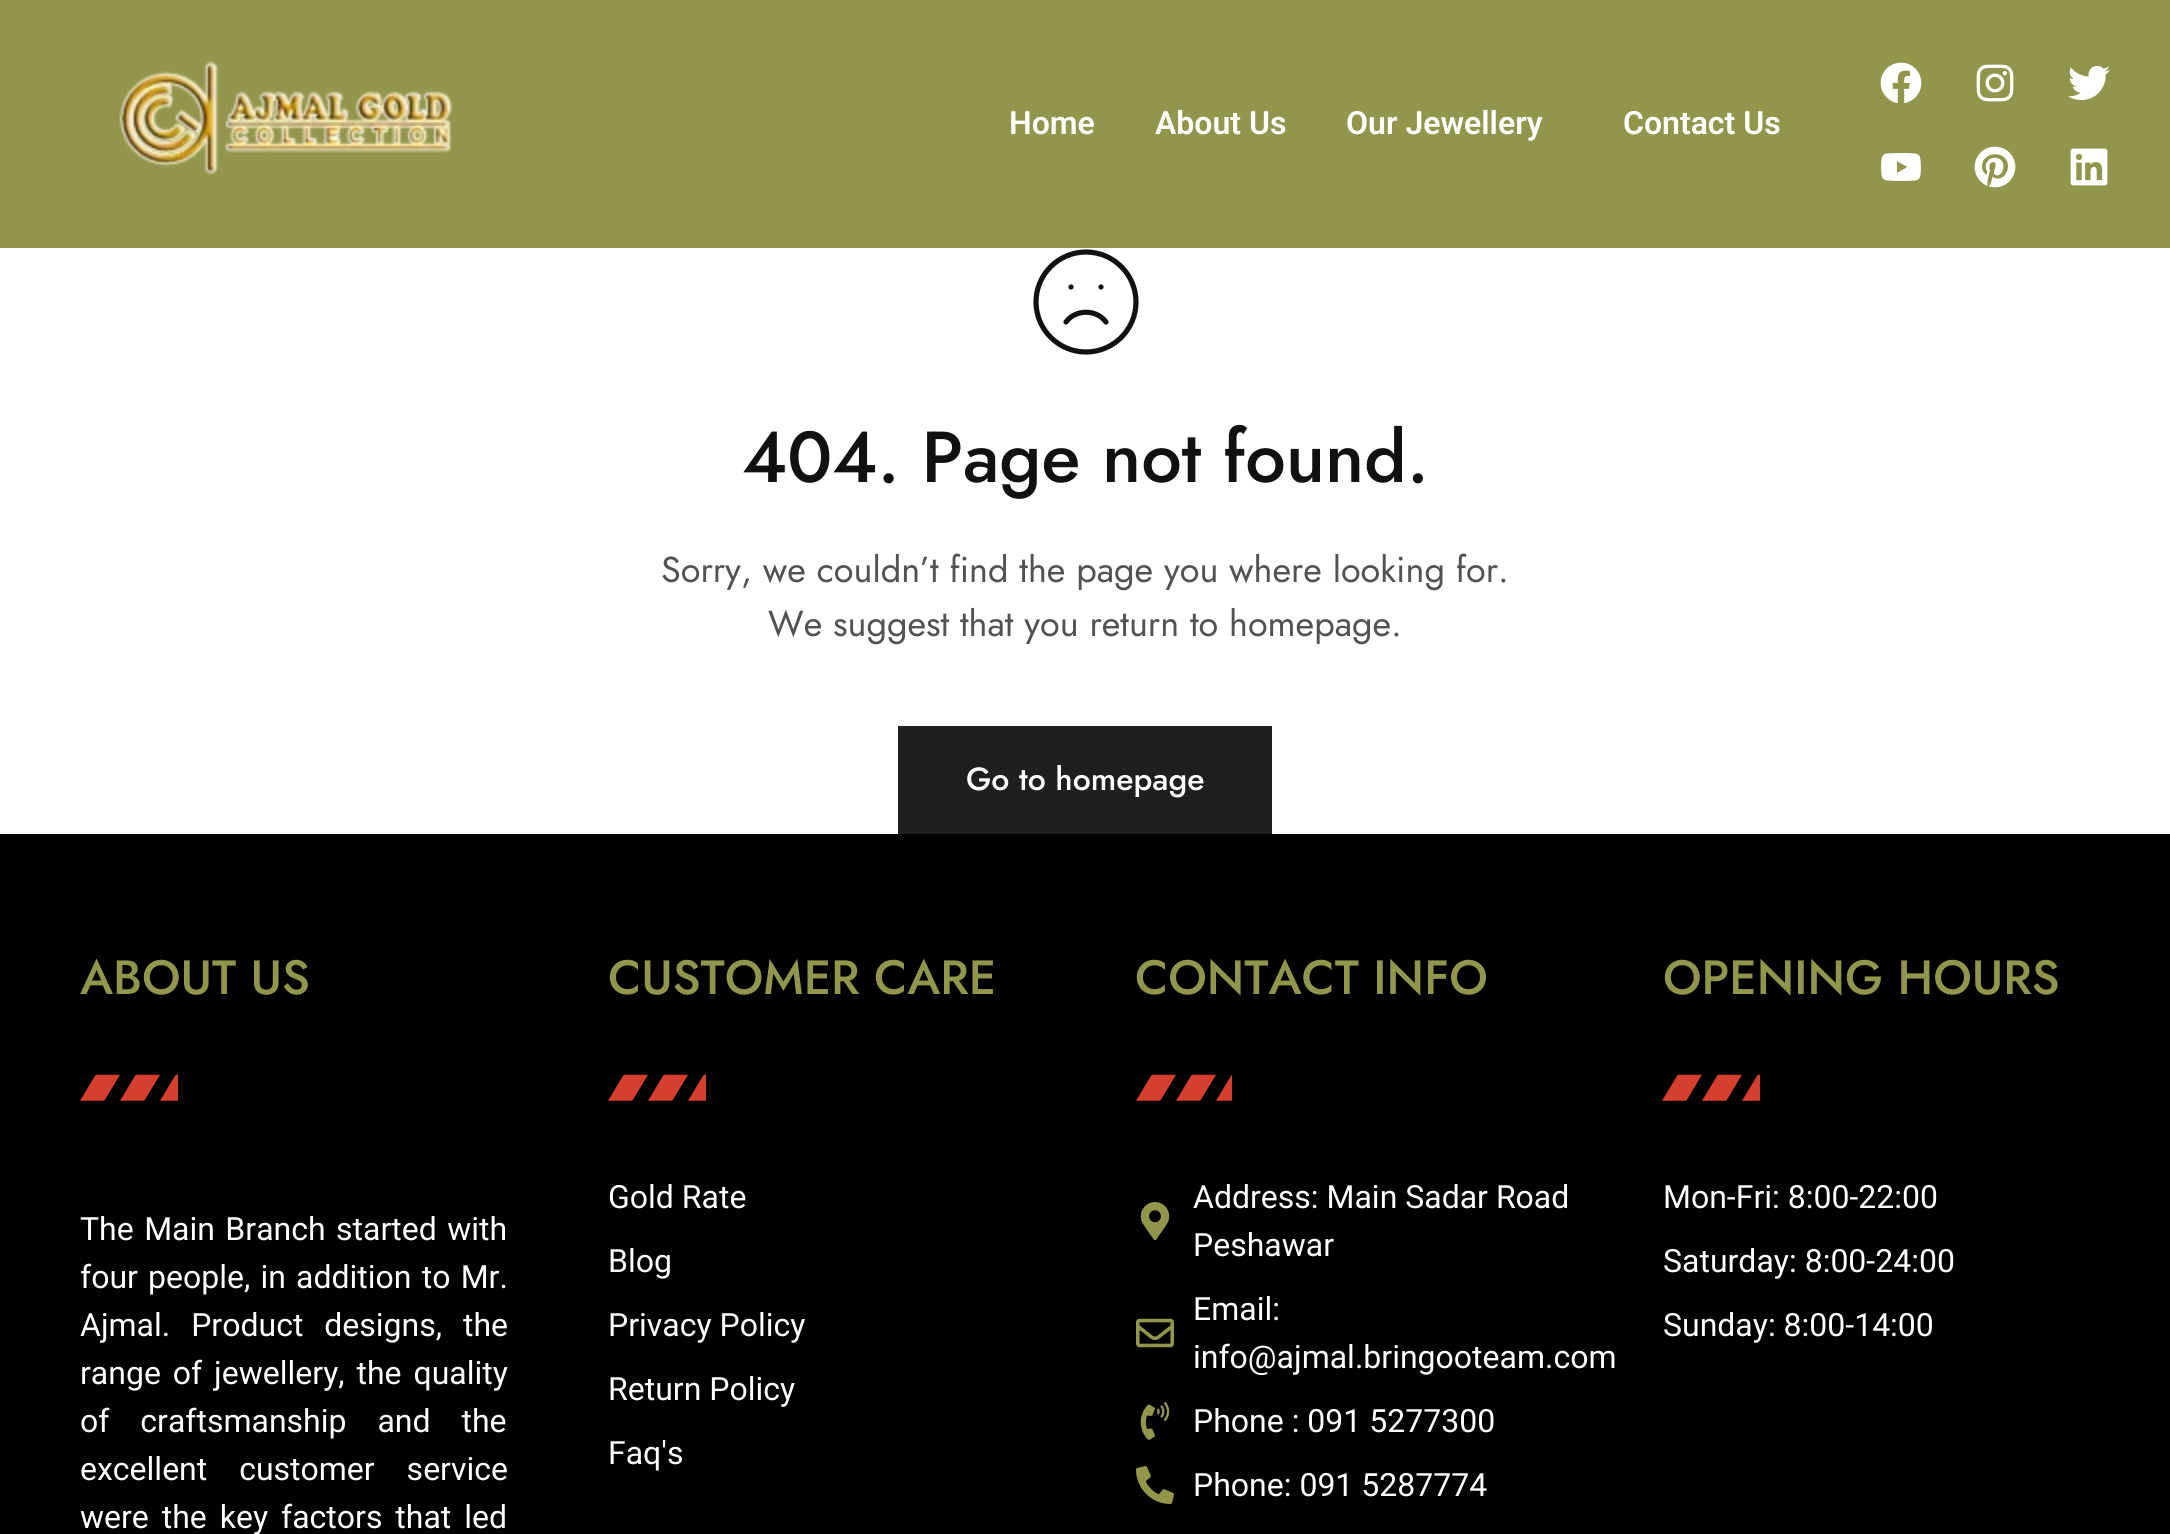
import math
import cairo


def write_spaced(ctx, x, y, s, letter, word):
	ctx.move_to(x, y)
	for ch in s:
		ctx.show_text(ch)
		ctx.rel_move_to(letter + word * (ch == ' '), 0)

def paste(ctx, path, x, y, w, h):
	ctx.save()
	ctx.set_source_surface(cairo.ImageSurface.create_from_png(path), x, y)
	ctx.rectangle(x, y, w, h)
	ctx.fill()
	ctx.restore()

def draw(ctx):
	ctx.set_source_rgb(1, 1, 1)
	ctx.paint()
	ctx.set_source_rgb(0.573, 0.588, 0.298)
	ctx.rectangle(0, 0, 2170, 248)
	ctx.fill()
	paste(ctx, 'media/1.png', 119, 61, 334, 114)
	ctx.select_font_face('Roboto SemiBold')
	ctx.set_font_size(32)
	ctx.set_source_rgb(1, 1, 1)
	for x, y, s in [
		(1009, 134, 'Home'),
		(1155, 134, 'About Us'),
		(1346, 134, 'Our Jewellery'),
		(1623, 134, 'Contact Us'),
	]:
		ctx.move_to(x, y)
		ctx.show_text(s)
	paste(ctx, 'media/2.png', 1880, 62, 42, 41)
	paste(ctx, 'media/3.png', 1976, 64, 38, 38)
	paste(ctx, 'media/4.png', 2068, 66, 42, 35)
	paste(ctx, 'media/5.png', 1881, 153, 40, 28)
	paste(ctx, 'media/6.png', 1974, 146, 42, 42)
	paste(ctx, 'media/7.png', 2070, 148, 38, 38)
	ctx.new_path()
	ctx.move_to(1106, 322)
	ctx.curve_to(1096.5, 309, 1075.5, 309, 1066, 322)
	ctx.move_to(1071, 287)
	ctx.line_to(1071, 287)
	ctx.move_to(1101, 287)
	ctx.line_to(1101, 287)
	ctx.move_to(1136, 302)
	ctx.curve_to(1136, 329.5, 1113.5, 352, 1086, 352)
	ctx.curve_to(1058.5, 352, 1036, 329.5, 1036, 302)
	ctx.curve_to(1036, 274.5, 1058.5, 252, 1086, 252)
	ctx.curve_to(1113.5, 252, 1136, 274.5, 1136, 302)
	ctx.close_path()
	ctx.set_source_rgb(0.067, 0.067, 0.067)
	ctx.set_line_width(5.2)
	ctx.set_line_cap(cairo.LINE_CAP_ROUND)
	ctx.set_line_join(cairo.LINE_JOIN_ROUND)
	ctx.stroke()
	ctx.select_font_face('Jost Medium')
	ctx.set_font_size(72)
	ctx.move_to(742, 482)
	ctx.show_text('404. Page not found.')
	ctx.select_font_face('Jost')
	ctx.set_font_size(36)
	ctx.set_source_rgb(0.322, 0.322, 0.322)
	ctx.move_to(661, 582)
	ctx.show_text('Sorry, we couldn’t find the page you where looking for.')
	ctx.move_to(768, 636)
	ctx.show_text('We suggest that you return to homepage.')
	ctx.set_source_rgb(0.122, 0.122, 0.122)
	ctx.rectangle(898, 726, 374, 108)
	ctx.fill()
	ctx.select_font_face('Jost Medium')
	ctx.set_font_size(32)
	ctx.set_source_rgb(1, 1, 1)
	ctx.move_to(966, 790)
	ctx.show_text('Go to homepage')
	ctx.set_source_rgb(0, 0, 0)
	ctx.rectangle(0, 834, 2170, 700)
	ctx.fill()
	ctx.set_font_size(48)
	ctx.set_source_rgb(0.573, 0.588, 0.298)
	ctx.move_to(80, 994)
	ctx.show_text('ABOUT US')
	paste(ctx, 'media/8.png', 80, 1074, 98, 27)
	ctx.select_font_face('Roboto')
	ctx.set_font_size(32)
	ctx.set_source_rgb(1, 1, 1)
	write_spaced(ctx, 80, 1240, 'The Main Branch started with', 0, 2.5)
	write_spaced(ctx, 80, 1288, 'four people, in addition to Mr.', 0, 2.25)
	write_spaced(ctx, 80, 1336, 'Ajmal. Product designs, the', 0, 13)
	write_spaced(ctx, 80, 1384, 'range of jewellery, the quality', 0, 4)
	write_spaced(ctx, 80, 1432, 'of craftsmanship and the', 0, 23)
	write_spaced(ctx, 80, 1480, 'excellent customer service', 0, 24)
	write_spaced(ctx, 80, 1528, 'were the key factors that led', 0, 5)
	ctx.select_font_face('Jost Medium')
	ctx.set_font_size(48)
	ctx.set_source_rgb(0.573, 0.588, 0.298)
	ctx.move_to(608, 994)
	ctx.show_text('CUSTOMER CARE')
	paste(ctx, 'media/8.png', 608, 1074, 98, 27)
	ctx.select_font_face('Roboto')
	ctx.set_font_size(32)
	ctx.set_source_rgb(1, 1, 1)
	for x, y, s in [
		(608, 1208, 'Gold Rate'),
		(608, 1272, 'Blog'),
		(608, 1336, 'Privacy Policy'),
		(608, 1400, 'Return Policy'),
		(608, 1464, 'Faq\'s'),
	]:
		ctx.move_to(x, y)
		ctx.show_text(s)
	ctx.select_font_face('Jost Medium')
	ctx.set_font_size(48)
	ctx.set_source_rgb(0.573, 0.588, 0.298)
	ctx.move_to(1135, 994)
	ctx.show_text('CONTACT INFO')
	paste(ctx, 'media/9.png', 1136, 1074, 96, 27)
	paste(ctx, 'media/10.png', 1140, 1202, 30, 38)
	ctx.select_font_face('Roboto')
	ctx.set_font_size(32)
	ctx.set_source_rgb(1, 1, 1)
	ctx.move_to(1193, 1208)
	ctx.show_text('Address: Main Sadar Road')
	ctx.move_to(1193, 1256)
	ctx.show_text('Peshawar')
	paste(ctx, 'media/11.png', 1136, 1318, 38, 30)
	ctx.move_to(1193, 1320)
	ctx.show_text('Email:')
	ctx.move_to(1193, 1368)
	ctx.show_text('info@ajmal.bringooteam.com')
	paste(ctx, 'media/12.png', 1140, 1402, 30, 38)
	ctx.move_to(1193, 1432)
	ctx.show_text('Phone : 091 5277300')
	paste(ctx, 'media/13.png', 1136, 1466, 38, 38)
	ctx.move_to(1193, 1496)
	ctx.show_text('Phone: 091 5287774')
	ctx.select_font_face('Jost Medium')
	ctx.set_font_size(48)
	ctx.set_source_rgb(0.573, 0.588, 0.298)
	ctx.move_to(1663, 994)
	ctx.show_text('OPENING HOURS')
	paste(ctx, 'media/8.png', 1662, 1074, 98, 27)
	ctx.select_font_face('Roboto')
	ctx.set_font_size(32)
	ctx.set_source_rgb(1, 1, 1)
	for x, y, s in [
		(1663, 1208, 'Mon-Fri: 8:00-22:00'),
		(1663, 1272, 'Saturday: 8:00-24:00'),
		(1663, 1336, 'Sunday: 8:00-14:00'),
	]:
		ctx.move_to(x, y)
		ctx.show_text(s)


surface = cairo.ImageSurface(cairo.FORMAT_RGB24, 2170, 1534)
ctx = cairo.Context(surface)
options = cairo.FontOptions()
options.set_hint_metrics(cairo.HINT_METRICS_OFF)
options.set_hint_style(cairo.HINT_STYLE_NONE)
ctx.set_font_options(options)
ctx.set_miter_limit(4)
draw(ctx)
surface.write_to_png('image.png')
